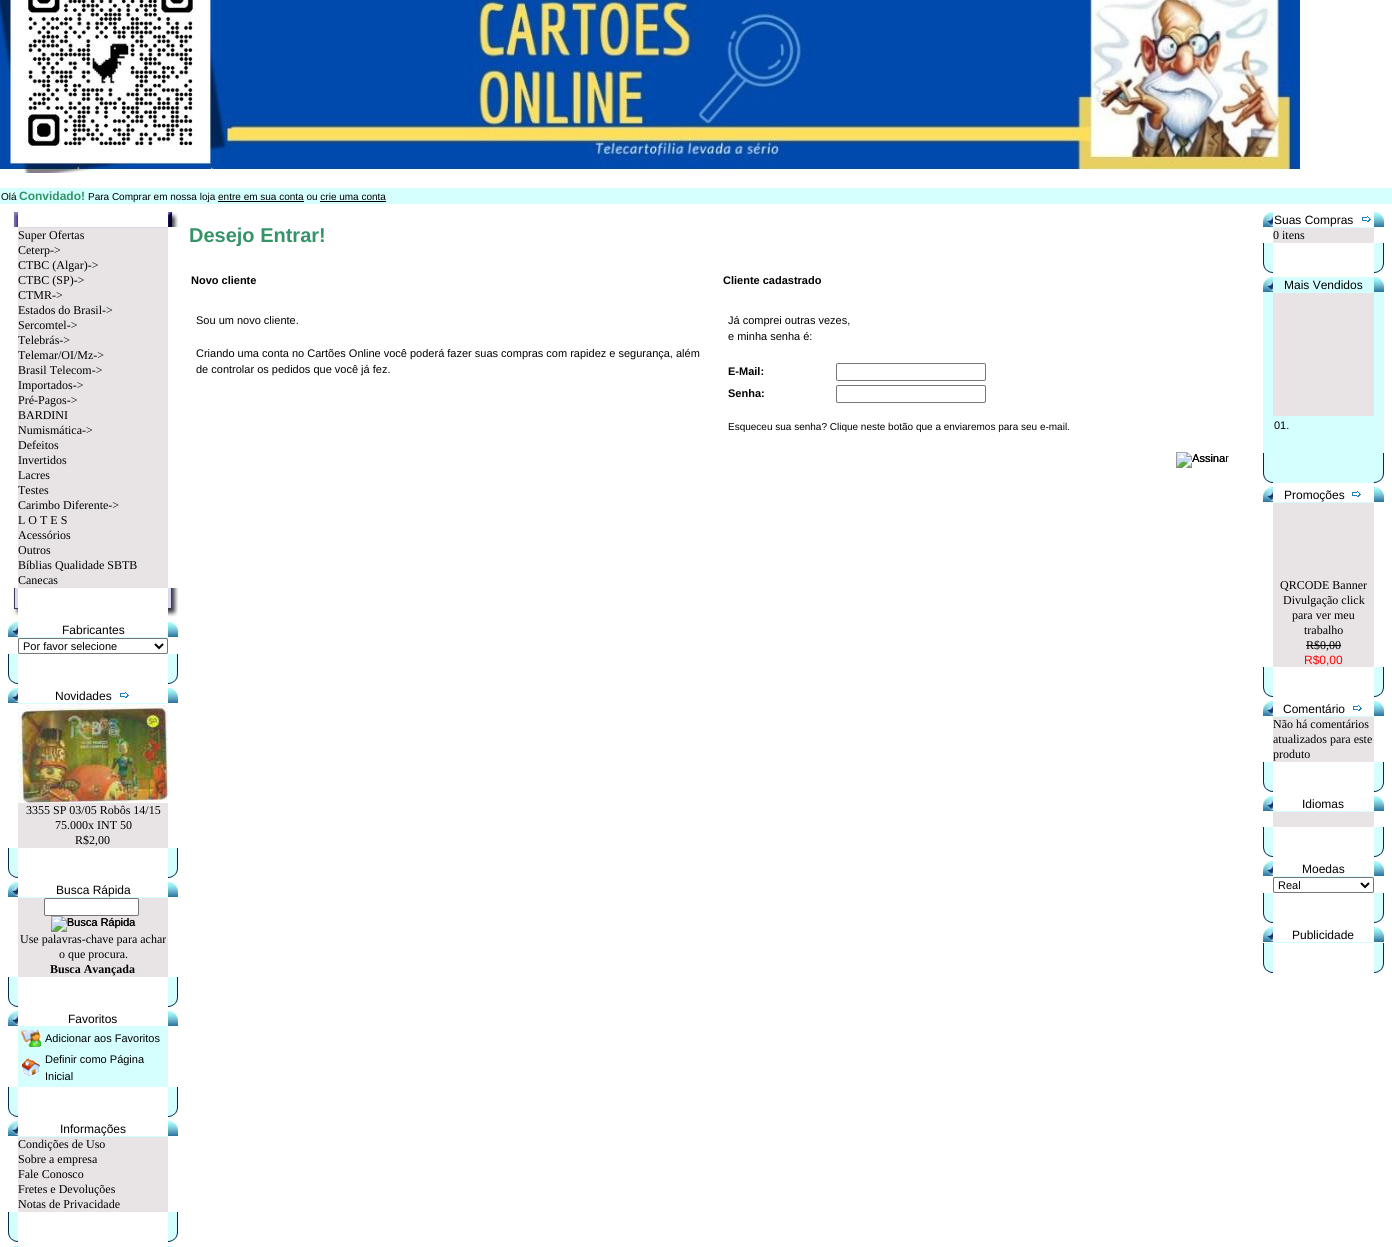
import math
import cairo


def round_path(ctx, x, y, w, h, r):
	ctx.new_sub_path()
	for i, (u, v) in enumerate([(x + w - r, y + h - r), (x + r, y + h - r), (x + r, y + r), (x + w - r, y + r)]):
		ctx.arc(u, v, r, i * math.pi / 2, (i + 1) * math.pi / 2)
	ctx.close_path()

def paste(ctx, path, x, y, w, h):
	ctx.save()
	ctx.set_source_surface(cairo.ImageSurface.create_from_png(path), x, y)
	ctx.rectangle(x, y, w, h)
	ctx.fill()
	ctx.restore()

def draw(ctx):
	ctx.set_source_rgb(1, 1, 1)
	ctx.paint()
	paste(ctx, 'media/1.png', 0, 0, 1300, 173)
	ctx.set_source_rgb(0.835, 1, 0.996)
	ctx.rectangle(0, 188, 1392, 16)
	ctx.fill()
	ctx.select_font_face('Liberation Sans')
	ctx.set_font_size(10)
	ctx.set_source_rgb(0, 0, 0)
	ctx.move_to(1, 200)
	ctx.show_text('Olá')
	ctx.select_font_face('Liberation Sans', cairo.FONT_SLANT_NORMAL, cairo.FONT_WEIGHT_BOLD)
	ctx.set_font_size(12)
	ctx.set_source_rgb(0.204, 0.58, 0.408)
	ctx.move_to(19, 200)
	ctx.show_text('Convidado!')
	ctx.select_font_face('Liberation Sans')
	ctx.set_font_size(10)
	ctx.set_source_rgb(0, 0, 0)
	ctx.move_to(88, 200)
	ctx.show_text('Para Comprar em nossa loja entre em sua conta ou crie uma conta')
	ctx.rectangle(218, 201, 86, 1)
	ctx.fill()
	ctx.rectangle(320, 201, 66, 1)
	ctx.fill()
	paste(ctx, 'media/2.png', 11, 212, 7, 15)
	paste(ctx, 'media/3.png', 168, 212, 10, 15)
	ctx.set_source_rgb(0.859, 0.851, 0.894)
	ctx.rectangle(18, 227, 150, 1)
	ctx.fill()
	ctx.set_source_rgb(0.91, 0.894, 0.898)
	ctx.rectangle(18, 228, 150, 360)
	ctx.fill()
	ctx.select_font_face('Liberation Serif')
	ctx.set_font_size(12)
	ctx.set_source_rgb(0, 0, 0)
	for x, y, s in [
		(18, 239, 'Super Ofertas'),
		(18, 254, 'Ceterp->'),
		(18, 269, 'CTBC (Algar)->'),
		(18, 284, 'CTBC (SP)->'),
		(18, 299, 'CTMR->'),
		(18, 314, 'Estados do Brasil->'),
		(18, 329, 'Sercomtel->'),
		(18, 344, 'Telebrás->'),
		(18, 359, 'Telemar/OI/Mz->'),
		(18, 374, 'Brasil Telecom->'),
		(18, 389, 'Importados->'),
		(18, 404, 'Pré-Pagos->'),
		(18, 419, 'BARDINI'),
		(18, 434, 'Numismática->'),
		(18, 449, 'Defeitos'),
		(18, 464, 'Invertidos'),
		(18, 479, 'Lacres'),
		(18, 494, 'Testes'),
		(18, 509, 'Carimbo Diferente->'),
		(18, 524, 'L O T E S'),
		(18, 539, 'Acessórios'),
		(18, 554, 'Outros'),
		(18, 569, 'Bíblias Qualidade SBTB'),
		(18, 584, 'Canecas'),
	]:
		ctx.move_to(x, y)
		ctx.show_text(s)
	paste(ctx, 'media/4.png', 8, 588, 10, 30)
	paste(ctx, 'media/5.png', 168, 588, 10, 30)
	paste(ctx, 'media/6.png', 8, 622, 10, 15)
	ctx.select_font_face('Liberation Sans')
	ctx.move_to(62, 634)
	ctx.show_text('Fabricantes')
	paste(ctx, 'media/7.png', 168, 622, 10, 15)
	ctx.set_source_rgb(0.835, 1, 0.996)
	ctx.rectangle(18, 637, 150, 1)
	ctx.fill()
	ctx.set_source_rgb(0.91, 0.894, 0.898)
	ctx.rectangle(18, 638, 150, 16)
	ctx.fill()
	ctx.set_source_rgb(1, 1, 1)
	round_path(ctx, 18.5, 638.5, 149, 15, 1.5)
	ctx.fill_preserve()
	ctx.set_source_rgb(0.463, 0.463, 0.463)
	ctx.set_line_width(1)
	ctx.stroke()
	ctx.new_path()
	ctx.move_to(155, 644)
	ctx.line_to(159, 648)
	ctx.line_to(163, 644)
	ctx.set_source_rgb(0, 0, 0)
	ctx.set_line_width(2)
	ctx.stroke()
	ctx.set_font_size(11)
	ctx.move_to(23, 650)
	ctx.show_text('Por favor selecione')
	paste(ctx, 'media/8.png', 8, 654, 10, 30)
	paste(ctx, 'media/9.png', 168, 654, 10, 30)
	paste(ctx, 'media/6.png', 8, 688, 10, 15)
	ctx.set_font_size(12)
	ctx.move_to(55, 700)
	ctx.show_text('Novidades')
	paste(ctx, 'media/10.png', 120, 692, 9, 6)
	paste(ctx, 'media/7.png', 168, 688, 10, 15)
	ctx.set_source_rgb(0.835, 1, 0.996)
	ctx.rectangle(18, 703, 150, 1)
	ctx.fill()
	ctx.set_source_rgb(0.91, 0.894, 0.898)
	ctx.rectangle(18, 803, 150, 45)
	ctx.fill()
	paste(ctx, 'media/11.png', 18, 704, 150, 99)
	ctx.select_font_face('Liberation Serif')
	ctx.set_source_rgb(0, 0, 0)
	for x, y, s in [
		(26, 814, '3355 SP 03/05 Robôs 14/15'),
		(55, 829, '75.000x INT 50'),
		(75, 844, 'R$2,00'),
	]:
		ctx.move_to(x, y)
		ctx.show_text(s)
	paste(ctx, 'media/8.png', 8, 848, 10, 30)
	paste(ctx, 'media/9.png', 168, 848, 10, 30)
	paste(ctx, 'media/6.png', 8, 882, 10, 15)
	ctx.select_font_face('Liberation Sans')
	ctx.move_to(56, 894)
	ctx.show_text('Busca Rápida')
	paste(ctx, 'media/7.png', 168, 882, 10, 15)
	ctx.set_source_rgb(0.835, 1, 0.996)
	ctx.rectangle(18, 897, 150, 1)
	ctx.fill()
	ctx.set_source_rgb(0.91, 0.894, 0.898)
	ctx.rectangle(18, 898, 150, 79)
	ctx.fill()
	ctx.set_source_rgb(1, 1, 1)
	round_path(ctx, 44.5, 898.5, 94, 17, 1.5)
	ctx.fill_preserve()
	ctx.set_source_rgb(0.463, 0.463, 0.463)
	ctx.set_line_width(1)
	ctx.stroke()
	paste(ctx, 'media/12.png', 51, 916, 84, 16)
	ctx.set_font_size(11)
	ctx.set_source_rgb(0, 0, 0)
	ctx.move_to(67, 926)
	ctx.show_text('Busca Rápida')
	ctx.select_font_face('Liberation Serif')
	ctx.set_font_size(12)
	ctx.move_to(20, 943)
	ctx.show_text('Use palavras-chave para achar')
	ctx.move_to(59, 958)
	ctx.show_text('o que procura.')
	ctx.select_font_face('Liberation Serif', cairo.FONT_SLANT_NORMAL, cairo.FONT_WEIGHT_BOLD)
	ctx.move_to(50, 973)
	ctx.show_text('Busca Avançada')
	paste(ctx, 'media/8.png', 8, 977, 10, 30)
	paste(ctx, 'media/9.png', 168, 977, 10, 30)
	paste(ctx, 'media/6.png', 8, 1011, 10, 15)
	ctx.select_font_face('Liberation Sans')
	ctx.move_to(68, 1023)
	ctx.show_text('Favoritos')
	paste(ctx, 'media/7.png', 168, 1011, 10, 15)
	ctx.set_source_rgb(0.835, 1, 0.996)
	ctx.rectangle(18, 1026, 150, 61)
	ctx.fill()
	paste(ctx, 'media/13.png', 21, 1030, 20, 17)
	ctx.set_font_size(11)
	ctx.set_source_rgb(0, 0, 0)
	ctx.move_to(45, 1042)
	ctx.show_text('Adicionar aos Favoritos')
	paste(ctx, 'media/14.png', 22, 1058, 18, 18)
	ctx.move_to(45, 1063)
	ctx.show_text('Definir como Página')
	ctx.move_to(45, 1080)
	ctx.show_text('Inicial')
	paste(ctx, 'media/8.png', 8, 1087, 10, 30)
	paste(ctx, 'media/9.png', 168, 1087, 10, 30)
	paste(ctx, 'media/6.png', 8, 1121, 10, 15)
	ctx.set_font_size(12)
	ctx.move_to(60, 1133)
	ctx.show_text('Informações')
	paste(ctx, 'media/7.png', 168, 1121, 10, 15)
	ctx.set_source_rgb(0.835, 1, 0.996)
	ctx.rectangle(18, 1136, 150, 1)
	ctx.fill()
	ctx.set_source_rgb(0.91, 0.894, 0.898)
	ctx.rectangle(18, 1137, 150, 75)
	ctx.fill()
	ctx.select_font_face('Liberation Serif')
	ctx.set_source_rgb(0, 0, 0)
	for x, y, s in [
		(18, 1148, 'Condições de Uso'),
		(18, 1163, 'Sobre a empresa'),
		(18, 1178, 'Fale Conosco'),
		(18, 1193, 'Fretes e Devoluções'),
		(18, 1208, 'Notas de Privacidade'),
	]:
		ctx.move_to(x, y)
		ctx.show_text(s)
	paste(ctx, 'media/8.png', 8, 1212, 10, 30)
	paste(ctx, 'media/9.png', 168, 1212, 10, 30)
	paste(ctx, 'media/15.png', 12, 1246, 6, 1)
	paste(ctx, 'media/16.png', 168, 1246, 10, 1)
	ctx.select_font_face('Liberation Sans', cairo.FONT_SLANT_NORMAL, cairo.FONT_WEIGHT_BOLD)
	ctx.set_font_size(20)
	ctx.set_source_rgb(0.204, 0.58, 0.408)
	ctx.move_to(189, 242)
	ctx.show_text('Desejo Entrar!')
	ctx.set_font_size(11)
	ctx.set_source_rgb(0, 0, 0)
	ctx.move_to(191, 284)
	ctx.show_text('Novo cliente')
	ctx.move_to(723, 284)
	ctx.show_text('Cliente cadastrado')
	ctx.select_font_face('Liberation Sans')
	for x, y, s in [
		(196, 324, 'Sou um novo cliente.'),
		(196, 357, 'Criando uma conta no Cartões Online você poderá fazer suas compras com rapidez e segurança, além'),
		(196, 373, 'de controlar os pedidos que você já fez.'),
		(728, 324, 'Já comprei outras vezes,'),
		(728, 340, 'e minha senha é:'),
	]:
		ctx.move_to(x, y)
		ctx.show_text(s)
	ctx.select_font_face('Liberation Sans', cairo.FONT_SLANT_NORMAL, cairo.FONT_WEIGHT_BOLD)
	ctx.move_to(728, 375)
	ctx.show_text('E-Mail:')
	round_path(ctx, 836.5, 363.5, 149, 17, 1.5)
	ctx.set_source_rgb(0.463, 0.463, 0.463)
	ctx.stroke()
	ctx.set_source_rgb(0, 0, 0)
	ctx.move_to(728, 397)
	ctx.show_text('Senha:')
	round_path(ctx, 836.5, 385.5, 149, 17, 1.5)
	ctx.set_source_rgb(0.463, 0.463, 0.463)
	ctx.stroke()
	ctx.select_font_face('Liberation Sans')
	ctx.set_font_size(10)
	ctx.set_source_rgb(0, 0, 0)
	ctx.move_to(728, 430)
	ctx.show_text('Esqueceu sua senha? Clique neste botão que a enviaremos para seu e-mail.')
	paste(ctx, 'media/17.png', 1176, 452, 53, 16)
	ctx.set_font_size(11)
	ctx.move_to(1192, 462)
	ctx.show_text('Assina')
	paste(ctx, 'media/6.png', 1263, 212, 10, 15)
	ctx.set_font_size(12)
	ctx.move_to(1274, 224)
	ctx.show_text('Suas Compras')
	paste(ctx, 'media/10.png', 1362, 216, 9, 6)
	paste(ctx, 'media/7.png', 1374, 212, 10, 15)
	ctx.set_source_rgb(0.835, 1, 0.996)
	ctx.rectangle(1273, 227, 101, 1)
	ctx.fill()
	ctx.set_source_rgb(0.91, 0.894, 0.898)
	ctx.rectangle(1273, 228, 101, 15)
	ctx.fill()
	ctx.select_font_face('Liberation Serif')
	ctx.set_source_rgb(0, 0, 0)
	ctx.move_to(1273, 239)
	ctx.show_text('0 itens')
	paste(ctx, 'media/8.png', 1263, 243, 10, 30)
	paste(ctx, 'media/9.png', 1374, 243, 10, 30)
	ctx.set_source_rgb(0.835, 1, 0.996)
	ctx.rectangle(1263, 277, 121, 206)
	ctx.fill()
	paste(ctx, 'media/6.png', 1263, 277, 10, 15)
	ctx.select_font_face('Liberation Sans')
	ctx.set_source_rgb(0, 0, 0)
	ctx.move_to(1284, 289)
	ctx.show_text('Mais Vendidos')
	paste(ctx, 'media/7.png', 1374, 277, 10, 15)
	ctx.set_source_rgb(0.91, 0.894, 0.898)
	ctx.rectangle(1273, 293, 101, 123)
	ctx.fill()
	ctx.set_font_size(11)
	ctx.set_source_rgb(0, 0, 0)
	ctx.move_to(1274, 429)
	ctx.show_text('01.')
	paste(ctx, 'media/8.png', 1263, 453, 10, 30)
	paste(ctx, 'media/9.png', 1374, 453, 10, 30)
	paste(ctx, 'media/6.png', 1263, 487, 10, 15)
	ctx.set_font_size(12)
	ctx.move_to(1284, 499)
	ctx.show_text('Promoções')
	paste(ctx, 'media/10.png', 1352, 491, 9, 6)
	paste(ctx, 'media/7.png', 1374, 487, 10, 15)
	ctx.set_source_rgb(0.835, 1, 0.996)
	ctx.rectangle(1273, 502, 101, 1)
	ctx.fill()
	ctx.set_source_rgb(0.91, 0.894, 0.898)
	ctx.rectangle(1273, 503, 101, 164)
	ctx.fill()
	ctx.select_font_face('Liberation Serif')
	ctx.set_source_rgb(0, 0, 0)
	for x, y, s in [
		(1280, 589, 'QRCODE Banner'),
		(1283, 604, 'Divulgação click'),
		(1292, 619, 'para ver meu'),
		(1304, 634, 'trabalho'),
		(1306, 649, 'R$0,00'),
	]:
		ctx.move_to(x, y)
		ctx.show_text(s)
	ctx.rectangle(1306, 645, 35, 1)
	ctx.fill()
	ctx.select_font_face('Liberation Sans')
	ctx.set_source_rgb(1, 0, 0)
	ctx.move_to(1304, 664)
	ctx.show_text('R$0,00')
	paste(ctx, 'media/8.png', 1263, 667, 10, 30)
	paste(ctx, 'media/9.png', 1374, 667, 10, 30)
	paste(ctx, 'media/6.png', 1263, 701, 10, 15)
	ctx.set_source_rgb(0, 0, 0)
	ctx.move_to(1283, 713)
	ctx.show_text('Comentário')
	paste(ctx, 'media/10.png', 1353, 705, 9, 6)
	paste(ctx, 'media/7.png', 1374, 701, 10, 15)
	ctx.set_source_rgb(0.835, 1, 0.996)
	ctx.rectangle(1273, 716, 101, 1)
	ctx.fill()
	ctx.set_source_rgb(0.91, 0.894, 0.898)
	ctx.rectangle(1273, 717, 101, 45)
	ctx.fill()
	ctx.select_font_face('Liberation Serif')
	ctx.set_source_rgb(0, 0, 0)
	for x, y, s in [
		(1273, 728, 'Não há comentários'),
		(1273, 743, 'atualizados para este'),
		(1273, 758, 'produto'),
	]:
		ctx.move_to(x, y)
		ctx.show_text(s)
	paste(ctx, 'media/8.png', 1263, 762, 10, 30)
	paste(ctx, 'media/9.png', 1374, 762, 10, 30)
	paste(ctx, 'media/6.png', 1263, 796, 10, 15)
	ctx.select_font_face('Liberation Sans')
	ctx.move_to(1302, 808)
	ctx.show_text('Idiomas')
	paste(ctx, 'media/7.png', 1374, 796, 10, 15)
	ctx.set_source_rgb(0.835, 1, 0.996)
	ctx.rectangle(1273, 811, 101, 1)
	ctx.fill()
	ctx.set_source_rgb(0.91, 0.894, 0.898)
	ctx.rectangle(1273, 812, 101, 15)
	ctx.fill()
	paste(ctx, 'media/8.png', 1263, 827, 10, 30)
	paste(ctx, 'media/9.png', 1374, 827, 10, 30)
	paste(ctx, 'media/6.png', 1263, 861, 10, 15)
	ctx.set_source_rgb(0, 0, 0)
	ctx.move_to(1302, 873)
	ctx.show_text('Moedas')
	paste(ctx, 'media/7.png', 1374, 861, 10, 15)
	ctx.set_source_rgb(0.835, 1, 0.996)
	ctx.rectangle(1273, 876, 101, 1)
	ctx.fill()
	ctx.set_source_rgb(0.91, 0.894, 0.898)
	ctx.rectangle(1273, 877, 101, 16)
	ctx.fill()
	ctx.set_source_rgb(1, 1, 1)
	round_path(ctx, 1273.5, 877.5, 100, 15, 1.5)
	ctx.fill_preserve()
	ctx.set_source_rgb(0.463, 0.463, 0.463)
	ctx.stroke()
	ctx.new_path()
	ctx.move_to(1361, 883)
	ctx.line_to(1365, 887)
	ctx.line_to(1369, 883)
	ctx.set_source_rgb(0, 0, 0)
	ctx.set_line_width(2)
	ctx.stroke()
	ctx.set_font_size(11)
	ctx.move_to(1278, 889)
	ctx.show_text('Real')
	paste(ctx, 'media/8.png', 1263, 893, 10, 30)
	paste(ctx, 'media/9.png', 1374, 893, 10, 30)
	paste(ctx, 'media/6.png', 1263, 927, 10, 15)
	ctx.set_font_size(12)
	ctx.move_to(1292, 939)
	ctx.show_text('Publicidade')
	paste(ctx, 'media/7.png', 1374, 927, 10, 15)
	ctx.set_source_rgb(0.835, 1, 0.996)
	ctx.rectangle(1273, 942, 101, 1)
	ctx.fill()
	paste(ctx, 'media/8.png', 1263, 943, 10, 30)
	paste(ctx, 'media/9.png', 1374, 943, 10, 30)


surface = cairo.ImageSurface(cairo.FORMAT_RGB24, 1392, 1247)
ctx = cairo.Context(surface)
options = cairo.FontOptions()
options.set_hint_metrics(cairo.HINT_METRICS_OFF)
options.set_hint_style(cairo.HINT_STYLE_NONE)
ctx.set_font_options(options)
ctx.set_miter_limit(4)
draw(ctx)
surface.write_to_png('image.png')
